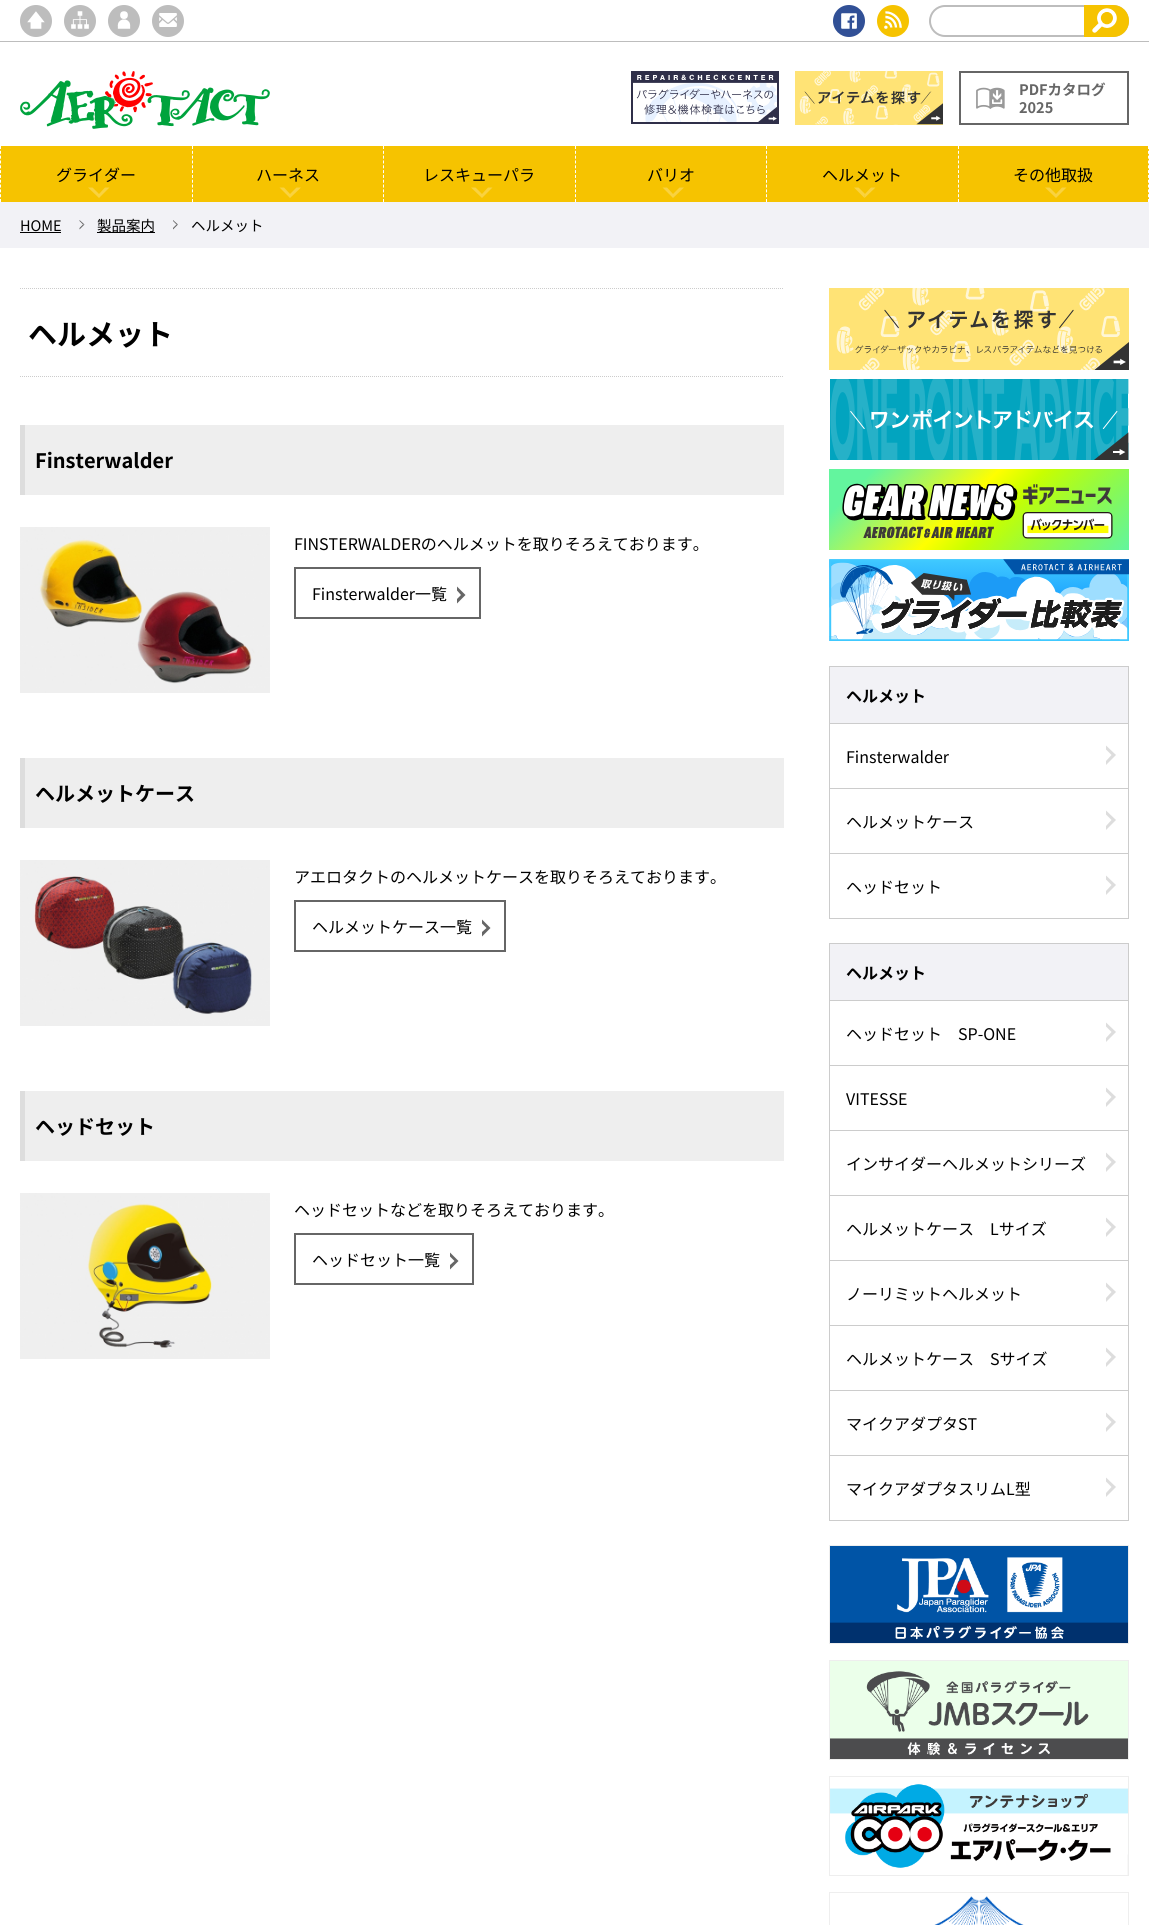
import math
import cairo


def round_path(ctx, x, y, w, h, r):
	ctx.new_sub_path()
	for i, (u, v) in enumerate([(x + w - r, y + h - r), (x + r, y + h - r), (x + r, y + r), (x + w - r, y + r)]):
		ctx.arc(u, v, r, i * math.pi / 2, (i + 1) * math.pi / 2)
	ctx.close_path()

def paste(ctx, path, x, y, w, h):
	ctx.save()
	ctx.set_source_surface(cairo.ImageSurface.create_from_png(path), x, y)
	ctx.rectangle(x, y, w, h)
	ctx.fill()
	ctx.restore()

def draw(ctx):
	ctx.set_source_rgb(1, 1, 1)
	ctx.paint()
	paste(ctx, 'media/1.png', 20, 71, 250, 58)
	paste(ctx, 'media/2.png', 631, 71, 148, 53)
	paste(ctx, 'media/3.png', 795, 71, 148, 54)
	paste(ctx, 'media/4.png', 976, 87, 29, 22)
	ctx.rectangle(960, 72, 168, 52)
	ctx.set_source_rgb(0.4, 0.4, 0.4)
	ctx.stroke()
	ctx.select_font_face('Noto Sans JP', cairo.FONT_SLANT_NORMAL, cairo.FONT_WEIGHT_BOLD)
	ctx.set_font_size(14.5)
	ctx.move_to(1019, 95)
	ctx.show_text('PDFカタログ')
	ctx.move_to(1019, 113)
	ctx.show_text('2025')
	ctx.set_source_rgb(0.741, 0.741, 0.741)
	ctx.rectangle(0, 41, 1149, 1)
	ctx.fill()
	ctx.arc(36, 21, 16, 0, 2 * math.pi)
	ctx.fill()
	paste(ctx, 'media/5.png', 27, 11, 18, 18)
	ctx.arc(80, 21, 16, 0, 2 * math.pi)
	ctx.fill()
	paste(ctx, 'media/6.png', 71, 11, 18, 18)
	ctx.arc(124, 21, 16, 0, 2 * math.pi)
	ctx.fill()
	paste(ctx, 'media/7.png', 117, 11, 14, 18)
	ctx.arc(168, 21, 16, 0, 2 * math.pi)
	ctx.fill()
	paste(ctx, 'media/8.png', 159, 13, 18, 14)
	ctx.set_source_rgb(0.192, 0.314, 0.588)
	ctx.arc(849, 21, 16, 0, 2 * math.pi)
	ctx.fill()
	paste(ctx, 'media/9.png', 841, 13, 16, 16)
	ctx.set_source_rgb(0.961, 0.765, 0)
	ctx.arc(893, 21, 16, 0, 2 * math.pi)
	ctx.fill()
	paste(ctx, 'media/10.png', 884, 11, 18, 18)
	round_path(ctx, 930, 6, 198, 30, 15)
	ctx.set_source_rgb(0.741, 0.741, 0.741)
	ctx.stroke()
	ctx.set_source_rgb(0.961, 0.765, 0)
	ctx.new_path()
	ctx.move_to(1084, 5)
	ctx.line_to(1113, 5)
	ctx.curve_to(1122, 5, 1129, 12, 1129, 21)
	ctx.curve_to(1129, 30, 1122, 37, 1113, 37)
	ctx.line_to(1084, 37)
	ctx.close_path()
	ctx.fill()
	paste(ctx, 'media/11.png', 1092, 8, 25, 25)
	ctx.rectangle(0, 146, 1149, 56)
	ctx.fill()
	ctx.new_path()
	ctx.move_to(0.5, 146)
	ctx.line_to(0.5, 202)
	ctx.set_source_rgb(1, 1, 1)
	ctx.set_line_width(1)
	ctx.set_dash([3, 1.82])
	ctx.stroke()
	ctx.select_font_face('Noto Sans JP')
	ctx.set_font_size(16)
	ctx.set_source_rgb(0, 0, 0)
	ctx.move_to(56, 181)
	ctx.show_text('グライダー')
	ctx.set_source_rgb(0.973, 0.824, 0.251)
	ctx.new_path()
	ctx.move_to(109.5, 187.5)
	ctx.line_to(99, 198)
	ctx.line_to(99, 194)
	ctx.line_to(105, 187.5)
	ctx.close_path()
	ctx.move_to(99, 198)
	ctx.line_to(88, 187.5)
	ctx.line_to(92.5, 187.5)
	ctx.line_to(99, 194)
	ctx.close_path()
	ctx.fill()
	ctx.new_path()
	ctx.move_to(192.5, 146)
	ctx.line_to(192.5, 202)
	ctx.set_source_rgb(1, 1, 1)
	ctx.stroke()
	ctx.set_source_rgb(0, 0, 0)
	ctx.move_to(256, 181)
	ctx.show_text('ハーネス')
	ctx.set_source_rgb(0.973, 0.824, 0.251)
	ctx.new_path()
	ctx.move_to(301, 187.5)
	ctx.line_to(290, 198)
	ctx.line_to(290, 194)
	ctx.line_to(296.5, 187.5)
	ctx.close_path()
	ctx.move_to(290, 198)
	ctx.line_to(279.5, 187.5)
	ctx.line_to(284, 187.5)
	ctx.line_to(290, 194)
	ctx.close_path()
	ctx.fill()
	ctx.new_path()
	ctx.move_to(383.5, 146)
	ctx.line_to(383.5, 202)
	ctx.set_source_rgb(1, 1, 1)
	ctx.stroke()
	ctx.set_source_rgb(0, 0, 0)
	ctx.move_to(423, 181)
	ctx.show_text('レスキューパラ')
	ctx.set_source_rgb(0.973, 0.824, 0.251)
	ctx.new_path()
	ctx.move_to(492.5, 187.5)
	ctx.line_to(482, 198)
	ctx.line_to(482, 194)
	ctx.line_to(488, 187.5)
	ctx.close_path()
	ctx.move_to(482, 198)
	ctx.line_to(471, 187.5)
	ctx.line_to(475.5, 187.5)
	ctx.line_to(482, 194)
	ctx.close_path()
	ctx.fill()
	ctx.new_path()
	ctx.move_to(575.5, 146)
	ctx.line_to(575.5, 202)
	ctx.set_source_rgb(1, 1, 1)
	ctx.stroke()
	ctx.set_source_rgb(0, 0, 0)
	ctx.move_to(647, 181)
	ctx.show_text('バリオ')
	ctx.set_source_rgb(0.973, 0.824, 0.251)
	ctx.new_path()
	ctx.move_to(684, 187.5)
	ctx.line_to(673, 198)
	ctx.line_to(673, 194)
	ctx.line_to(679.5, 187.5)
	ctx.close_path()
	ctx.move_to(673, 198)
	ctx.line_to(662.5, 187.5)
	ctx.line_to(667, 187.5)
	ctx.line_to(673, 194)
	ctx.close_path()
	ctx.fill()
	ctx.new_path()
	ctx.move_to(766.5, 146)
	ctx.line_to(766.5, 202)
	ctx.set_source_rgb(1, 1, 1)
	ctx.stroke()
	ctx.set_source_rgb(0, 0, 0)
	ctx.move_to(822, 181)
	ctx.show_text('ヘルメット')
	ctx.set_source_rgb(0.973, 0.824, 0.251)
	ctx.new_path()
	ctx.move_to(875.5, 187.5)
	ctx.line_to(864.5, 198)
	ctx.line_to(865, 194)
	ctx.line_to(871, 187.5)
	ctx.close_path()
	ctx.fill()
	ctx.new_path()
	ctx.move_to(864.5, 198)
	ctx.line_to(854, 187.5)
	ctx.line_to(858.5, 187.5)
	ctx.line_to(865, 194)
	ctx.close_path()
	ctx.fill()
	ctx.new_path()
	ctx.move_to(1148.5, 146)
	ctx.line_to(1148.5, 202)
	ctx.set_source_rgb(1, 1, 1)
	ctx.stroke()
	ctx.new_path()
	ctx.move_to(958.5, 146)
	ctx.line_to(958.5, 202)
	ctx.stroke()
	ctx.set_source_rgb(0, 0, 0)
	ctx.move_to(1013, 181)
	ctx.show_text('その他取扱')
	ctx.set_source_rgb(0.973, 0.824, 0.251)
	ctx.new_path()
	ctx.move_to(1066.5, 187.5)
	ctx.line_to(1056, 198)
	ctx.line_to(1056, 194)
	ctx.line_to(1062, 187.5)
	ctx.close_path()
	ctx.move_to(1056, 198)
	ctx.line_to(1045, 187.5)
	ctx.line_to(1049.5, 187.5)
	ctx.line_to(1056, 194)
	ctx.close_path()
	ctx.fill()
	ctx.set_source_rgb(0.949, 0.949, 0.961)
	ctx.rectangle(0, 202, 1149, 46)
	ctx.fill()
	ctx.set_font_size(14.5)
	ctx.set_source_rgb(0, 0, 0)
	ctx.move_to(20, 231)
	ctx.show_text('HOME')
	ctx.rectangle(20, 232, 41, 1)
	ctx.fill()
	ctx.set_source_rgb(0.4, 0.4, 0.4)
	ctx.new_path()
	ctx.move_to(79.5, 220)
	ctx.line_to(84.5, 224.5)
	ctx.line_to(83, 224.5)
	ctx.line_to(79.5, 221)
	ctx.close_path()
	ctx.fill()
	ctx.new_path()
	ctx.move_to(84.5, 224.5)
	ctx.line_to(79.5, 229.5)
	ctx.line_to(79.5, 228)
	ctx.line_to(83, 224.5)
	ctx.close_path()
	ctx.fill()
	ctx.set_source_rgb(0, 0, 0)
	ctx.rectangle(97, 232, 58, 1)
	ctx.fill()
	ctx.move_to(97, 231)
	ctx.show_text('製品案内')
	ctx.set_source_rgb(0.4, 0.4, 0.4)
	ctx.new_path()
	ctx.move_to(173, 220)
	ctx.line_to(178, 224.5)
	ctx.line_to(176.5, 224.5)
	ctx.line_to(173, 221)
	ctx.close_path()
	ctx.fill()
	ctx.new_path()
	ctx.move_to(178, 224.5)
	ctx.line_to(173, 229.5)
	ctx.line_to(173, 228)
	ctx.line_to(176.5, 224.5)
	ctx.close_path()
	ctx.fill()
	ctx.set_source_rgb(0, 0, 0)
	ctx.move_to(191, 231)
	ctx.show_text('ヘルメット')
	ctx.new_path()
	ctx.move_to(20, 288.5)
	ctx.line_to(784, 288.5)
	ctx.set_source_rgb(0.8, 0.8, 0.8)
	ctx.set_dash([1, 1])
	ctx.stroke()
	ctx.new_path()
	ctx.move_to(20, 376.5)
	ctx.line_to(784, 376.5)
	ctx.stroke()
	ctx.select_font_face('Noto Sans JP', cairo.FONT_SLANT_NORMAL, cairo.FONT_WEIGHT_BOLD)
	ctx.set_font_size(29)
	ctx.set_source_rgb(0, 0, 0)
	ctx.move_to(28, 345)
	ctx.show_text('ヘルメット')
	ctx.set_source_rgb(0.933, 0.933, 0.933)
	ctx.rectangle(25, 425, 759, 70)
	ctx.fill()
	ctx.set_source_rgb(0.867, 0.867, 0.867)
	ctx.rectangle(20, 425, 5, 70)
	ctx.fill()
	ctx.set_font_size(20)
	ctx.set_source_rgb(0, 0, 0)
	ctx.move_to(35, 468)
	ctx.show_text('Finsterwalder')
	paste(ctx, 'media/12.png', 20, 527, 250, 166)
	ctx.select_font_face('Noto Sans JP')
	ctx.set_font_size(16)
	ctx.move_to(294, 550)
	ctx.show_text('FINSTERWALDERのヘルメットを取りそろえております。')
	ctx.rectangle(295, 568, 185, 50)
	ctx.set_source_rgb(0.4, 0.4, 0.4)
	ctx.set_line_width(2)
	ctx.set_dash([])
	ctx.stroke()
	ctx.set_source_rgb(0, 0, 0)
	ctx.move_to(312, 600)
	ctx.show_text('Finsterwalder一覧')
	ctx.set_source_rgb(0.4, 0.4, 0.4)
	ctx.new_path()
	ctx.move_to(457, 586.5)
	ctx.line_to(465.5, 595)
	ctx.line_to(461, 595)
	ctx.line_to(457, 590.5)
	ctx.close_path()
	ctx.move_to(465.5, 595)
	ctx.line_to(457, 603.5)
	ctx.line_to(457, 599)
	ctx.line_to(461, 595)
	ctx.close_path()
	ctx.fill()
	ctx.set_source_rgb(0.933, 0.933, 0.933)
	ctx.rectangle(25, 758, 759, 70)
	ctx.fill()
	ctx.set_source_rgb(0.867, 0.867, 0.867)
	ctx.rectangle(20, 758, 5, 70)
	ctx.fill()
	ctx.select_font_face('Noto Sans JP', cairo.FONT_SLANT_NORMAL, cairo.FONT_WEIGHT_BOLD)
	ctx.set_font_size(20)
	ctx.set_source_rgb(0, 0, 0)
	ctx.move_to(35, 801)
	ctx.show_text('ヘルメットケース')
	paste(ctx, 'media/13.png', 20, 860, 250, 166)
	ctx.select_font_face('Noto Sans JP')
	ctx.set_font_size(16)
	ctx.move_to(294, 883)
	ctx.show_text('アエロタクトのヘルメットケースを取りそろえております。')
	ctx.rectangle(295, 901, 210, 50)
	ctx.set_source_rgb(0.4, 0.4, 0.4)
	ctx.stroke()
	ctx.set_source_rgb(0, 0, 0)
	ctx.move_to(312, 933)
	ctx.show_text('ヘルメットケース一覧')
	ctx.set_source_rgb(0.4, 0.4, 0.4)
	ctx.new_path()
	ctx.move_to(482, 919.5)
	ctx.line_to(490.5, 928)
	ctx.line_to(486.5, 928)
	ctx.line_to(482, 923.5)
	ctx.close_path()
	ctx.move_to(490.5, 928)
	ctx.line_to(482, 936.5)
	ctx.line_to(482, 932)
	ctx.line_to(486.5, 928)
	ctx.close_path()
	ctx.fill()
	ctx.set_source_rgb(0.933, 0.933, 0.933)
	ctx.rectangle(25, 1091, 759, 70)
	ctx.fill()
	ctx.set_source_rgb(0.867, 0.867, 0.867)
	ctx.rectangle(20, 1091, 5, 70)
	ctx.fill()
	ctx.select_font_face('Noto Sans JP', cairo.FONT_SLANT_NORMAL, cairo.FONT_WEIGHT_BOLD)
	ctx.set_font_size(20)
	ctx.set_source_rgb(0, 0, 0)
	ctx.move_to(35, 1134)
	ctx.show_text('ヘッドセット')
	paste(ctx, 'media/14.png', 20, 1193, 250, 166)
	ctx.select_font_face('Noto Sans JP')
	ctx.set_font_size(16)
	ctx.move_to(294, 1216)
	ctx.show_text('ヘッドセットなどを取りそろえております。')
	ctx.rectangle(295, 1234, 178, 50)
	ctx.set_source_rgb(0.4, 0.4, 0.4)
	ctx.stroke()
	ctx.set_source_rgb(0, 0, 0)
	ctx.move_to(312, 1266)
	ctx.show_text('ヘッドセット一覧')
	ctx.set_source_rgb(0.4, 0.4, 0.4)
	ctx.new_path()
	ctx.move_to(450, 1252.5)
	ctx.line_to(458.5, 1261)
	ctx.line_to(454.5, 1261)
	ctx.line_to(450, 1256.5)
	ctx.close_path()
	ctx.move_to(458.5, 1261)
	ctx.line_to(450, 1269.5)
	ctx.line_to(450, 1265)
	ctx.line_to(454.5, 1261)
	ctx.close_path()
	ctx.fill()
	paste(ctx, 'media/15.png', 829, 288, 300, 82)
	paste(ctx, 'media/16.png', 830, 379, 299, 81)
	paste(ctx, 'media/17.png', 829, 469, 300, 81)
	paste(ctx, 'media/18.png', 829, 559, 300, 82)
	ctx.set_source_rgb(0.949, 0.949, 0.961)
	ctx.rectangle(829.5, 666.5, 299, 57)
	ctx.fill_preserve()
	ctx.set_source_rgb(0.8, 0.8, 0.8)
	ctx.set_line_width(1)
	ctx.stroke()
	ctx.select_font_face('Noto Sans JP', cairo.FONT_SLANT_NORMAL, cairo.FONT_WEIGHT_BOLD)
	ctx.set_source_rgb(0, 0, 0)
	ctx.move_to(846, 702)
	ctx.show_text('ヘルメット')
	ctx.set_source_rgb(0.8, 0.8, 0.8)
	ctx.rectangle(1128, 724, 1, 195)
	ctx.rectangle(829, 788, 300, 1)
	ctx.rectangle(829, 724, 1, 65)
	ctx.fill()
	ctx.select_font_face('Noto Sans JP')
	ctx.set_source_rgb(0, 0, 0)
	ctx.move_to(846, 763)
	ctx.show_text('Finsterwalder')
	ctx.set_source_rgb(0.867, 0.867, 0.867)
	ctx.new_path()
	ctx.move_to(1106, 745.5)
	ctx.line_to(1116, 755)
	ctx.line_to(1111.5, 755)
	ctx.line_to(1106, 749.5)
	ctx.close_path()
	ctx.move_to(1116, 755)
	ctx.line_to(1106, 765)
	ctx.line_to(1106, 761)
	ctx.line_to(1111.5, 755)
	ctx.close_path()
	ctx.fill()
	ctx.set_source_rgb(0.8, 0.8, 0.8)
	ctx.rectangle(829, 853, 300, 1)
	ctx.fill()
	ctx.rectangle(829, 789, 1, 65)
	ctx.fill()
	ctx.set_source_rgb(0, 0, 0)
	ctx.move_to(846, 828)
	ctx.show_text('ヘルメットケース')
	ctx.set_source_rgb(0.867, 0.867, 0.867)
	ctx.new_path()
	ctx.move_to(1106, 810.5)
	ctx.line_to(1116, 820)
	ctx.line_to(1111.5, 820)
	ctx.line_to(1106, 814.5)
	ctx.close_path()
	ctx.move_to(1116, 820)
	ctx.line_to(1106, 830)
	ctx.line_to(1106, 826)
	ctx.line_to(1111.5, 820)
	ctx.close_path()
	ctx.fill()
	ctx.set_source_rgb(0.8, 0.8, 0.8)
	ctx.rectangle(829, 918, 300, 1)
	ctx.fill()
	ctx.rectangle(829, 854, 1, 65)
	ctx.fill()
	ctx.set_source_rgb(0, 0, 0)
	ctx.move_to(846, 893)
	ctx.show_text('ヘッドセット')
	ctx.set_source_rgb(0.867, 0.867, 0.867)
	ctx.new_path()
	ctx.move_to(1106, 875.5)
	ctx.line_to(1116, 885)
	ctx.line_to(1111.5, 885)
	ctx.line_to(1106, 879.5)
	ctx.close_path()
	ctx.move_to(1116, 885)
	ctx.line_to(1106, 895)
	ctx.line_to(1106, 891)
	ctx.line_to(1111.5, 885)
	ctx.close_path()
	ctx.fill()
	ctx.set_source_rgb(0.949, 0.949, 0.961)
	ctx.rectangle(829.5, 943.5, 299, 57)
	ctx.fill_preserve()
	ctx.set_source_rgb(0.8, 0.8, 0.8)
	ctx.stroke()
	ctx.select_font_face('Noto Sans JP', cairo.FONT_SLANT_NORMAL, cairo.FONT_WEIGHT_BOLD)
	ctx.set_source_rgb(0, 0, 0)
	ctx.move_to(846, 979)
	ctx.show_text('ヘルメット')
	ctx.set_source_rgb(0.8, 0.8, 0.8)
	ctx.rectangle(1128, 1001, 1, 520)
	ctx.rectangle(829, 1065, 300, 1)
	ctx.rectangle(829, 1001, 1, 65)
	ctx.fill()
	ctx.select_font_face('Noto Sans JP')
	ctx.set_source_rgb(0, 0, 0)
	ctx.move_to(846, 1040)
	ctx.show_text('ヘッドセット　SP-ONE')
	ctx.set_source_rgb(0.867, 0.867, 0.867)
	ctx.new_path()
	ctx.move_to(1106, 1022.5)
	ctx.line_to(1116, 1032)
	ctx.line_to(1111.5, 1032)
	ctx.line_to(1106, 1026.5)
	ctx.close_path()
	ctx.move_to(1116, 1032)
	ctx.line_to(1106, 1042)
	ctx.line_to(1106, 1038)
	ctx.line_to(1111.5, 1032)
	ctx.close_path()
	ctx.fill()
	ctx.set_source_rgb(0.8, 0.8, 0.8)
	ctx.rectangle(829, 1130, 300, 1)
	ctx.fill()
	ctx.rectangle(829, 1066, 1, 65)
	ctx.fill()
	ctx.set_source_rgb(0, 0, 0)
	ctx.move_to(846, 1105)
	ctx.show_text('VITESSE')
	ctx.set_source_rgb(0.867, 0.867, 0.867)
	ctx.new_path()
	ctx.move_to(1106, 1087.5)
	ctx.line_to(1116, 1097)
	ctx.line_to(1111.5, 1097)
	ctx.line_to(1106, 1091.5)
	ctx.close_path()
	ctx.move_to(1116, 1097)
	ctx.line_to(1106, 1107)
	ctx.line_to(1106, 1103)
	ctx.line_to(1111.5, 1097)
	ctx.close_path()
	ctx.fill()
	ctx.set_source_rgb(0.8, 0.8, 0.8)
	ctx.rectangle(829, 1195, 300, 1)
	ctx.fill()
	ctx.rectangle(829, 1131, 1, 65)
	ctx.fill()
	ctx.set_source_rgb(0, 0, 0)
	ctx.move_to(846, 1170)
	ctx.show_text('インサイダーヘルメットシリーズ')
	ctx.set_source_rgb(0.867, 0.867, 0.867)
	ctx.new_path()
	ctx.move_to(1106, 1152.5)
	ctx.line_to(1116, 1162)
	ctx.line_to(1111.5, 1162)
	ctx.line_to(1106, 1156.5)
	ctx.close_path()
	ctx.move_to(1116, 1162)
	ctx.line_to(1106, 1172)
	ctx.line_to(1106, 1168)
	ctx.line_to(1111.5, 1162)
	ctx.close_path()
	ctx.fill()
	ctx.set_source_rgb(0.8, 0.8, 0.8)
	ctx.rectangle(829, 1260, 300, 1)
	ctx.fill()
	ctx.rectangle(829, 1196, 1, 65)
	ctx.fill()
	ctx.set_source_rgb(0, 0, 0)
	ctx.move_to(846, 1235)
	ctx.show_text('ヘルメットケース　Lサイズ')
	ctx.set_source_rgb(0.867, 0.867, 0.867)
	ctx.new_path()
	ctx.move_to(1106, 1217.5)
	ctx.line_to(1116, 1227)
	ctx.line_to(1111.5, 1227)
	ctx.line_to(1106, 1221.5)
	ctx.close_path()
	ctx.move_to(1116, 1227)
	ctx.line_to(1106, 1237)
	ctx.line_to(1106, 1233)
	ctx.line_to(1111.5, 1227)
	ctx.close_path()
	ctx.fill()
	ctx.set_source_rgb(0.8, 0.8, 0.8)
	ctx.rectangle(829, 1325, 300, 1)
	ctx.fill()
	ctx.rectangle(829, 1261, 1, 65)
	ctx.fill()
	ctx.set_source_rgb(0, 0, 0)
	ctx.move_to(846, 1300)
	ctx.show_text('ノーリミットヘルメット')
	ctx.set_source_rgb(0.867, 0.867, 0.867)
	ctx.new_path()
	ctx.move_to(1106, 1282.5)
	ctx.line_to(1116, 1292)
	ctx.line_to(1111.5, 1292)
	ctx.line_to(1106, 1286.5)
	ctx.close_path()
	ctx.move_to(1116, 1292)
	ctx.line_to(1106, 1302)
	ctx.line_to(1106, 1298)
	ctx.line_to(1111.5, 1292)
	ctx.close_path()
	ctx.fill()
	ctx.set_source_rgb(0.8, 0.8, 0.8)
	ctx.rectangle(829, 1390, 300, 1)
	ctx.fill()
	ctx.rectangle(829, 1326, 1, 65)
	ctx.fill()
	ctx.set_source_rgb(0, 0, 0)
	ctx.move_to(846, 1365)
	ctx.show_text('ヘルメットケース　Sサイズ')
	ctx.set_source_rgb(0.867, 0.867, 0.867)
	ctx.new_path()
	ctx.move_to(1106, 1347.5)
	ctx.line_to(1116, 1357)
	ctx.line_to(1111.5, 1357)
	ctx.line_to(1106, 1351.5)
	ctx.close_path()
	ctx.move_to(1116, 1357)
	ctx.line_to(1106, 1367)
	ctx.line_to(1106, 1363)
	ctx.line_to(1111.5, 1357)
	ctx.close_path()
	ctx.fill()
	ctx.set_source_rgb(0.8, 0.8, 0.8)
	ctx.rectangle(829, 1455, 300, 1)
	ctx.fill()
	ctx.rectangle(829, 1391, 1, 65)
	ctx.fill()
	ctx.set_source_rgb(0, 0, 0)
	ctx.move_to(846, 1430)
	ctx.show_text('マイクアダプタST')
	ctx.set_source_rgb(0.867, 0.867, 0.867)
	ctx.new_path()
	ctx.move_to(1106, 1412.5)
	ctx.line_to(1116, 1422)
	ctx.line_to(1111.5, 1422)
	ctx.line_to(1106, 1416.5)
	ctx.close_path()
	ctx.move_to(1116, 1422)
	ctx.line_to(1106, 1432)
	ctx.line_to(1106, 1428)
	ctx.line_to(1111.5, 1422)
	ctx.close_path()
	ctx.fill()
	ctx.set_source_rgb(0.8, 0.8, 0.8)
	ctx.rectangle(829, 1520, 300, 1)
	ctx.fill()
	ctx.rectangle(829, 1456, 1, 65)
	ctx.fill()
	ctx.set_source_rgb(0, 0, 0)
	ctx.move_to(846, 1495)
	ctx.show_text('マイクアダプタスリムL型')
	ctx.set_source_rgb(0.867, 0.867, 0.867)
	ctx.new_path()
	ctx.move_to(1106, 1477.5)
	ctx.line_to(1116, 1487)
	ctx.line_to(1111.5, 1487)
	ctx.line_to(1106, 1481.5)
	ctx.close_path()
	ctx.move_to(1116, 1487)
	ctx.line_to(1106, 1497)
	ctx.line_to(1106, 1493)
	ctx.line_to(1111.5, 1487)
	ctx.close_path()
	ctx.fill()
	ctx.rectangle(829.5, 1545.5, 299, 98)
	ctx.set_source_rgb(0.933, 0.933, 0.933)
	ctx.stroke()
	paste(ctx, 'media/19.png', 830, 1546, 298, 97)
	ctx.rectangle(829.5, 1660.5, 299, 99)
	ctx.stroke()
	paste(ctx, 'media/20.png', 830, 1661, 298, 98)
	ctx.rectangle(829.5, 1776.5, 299, 99)
	ctx.stroke()
	paste(ctx, 'media/21.png', 830, 1784, 298, 91)
	ctx.rectangle(829.5, 1892.5, 299, 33)
	ctx.stroke()
	paste(ctx, 'media/22.png', 934, 1896, 90, 29)


surface = cairo.ImageSurface(cairo.FORMAT_RGB24, 1149, 1925)
ctx = cairo.Context(surface)
options = cairo.FontOptions()
options.set_hint_metrics(cairo.HINT_METRICS_OFF)
options.set_hint_style(cairo.HINT_STYLE_NONE)
ctx.set_font_options(options)
ctx.set_miter_limit(4)
draw(ctx)
surface.write_to_png('image.png')
